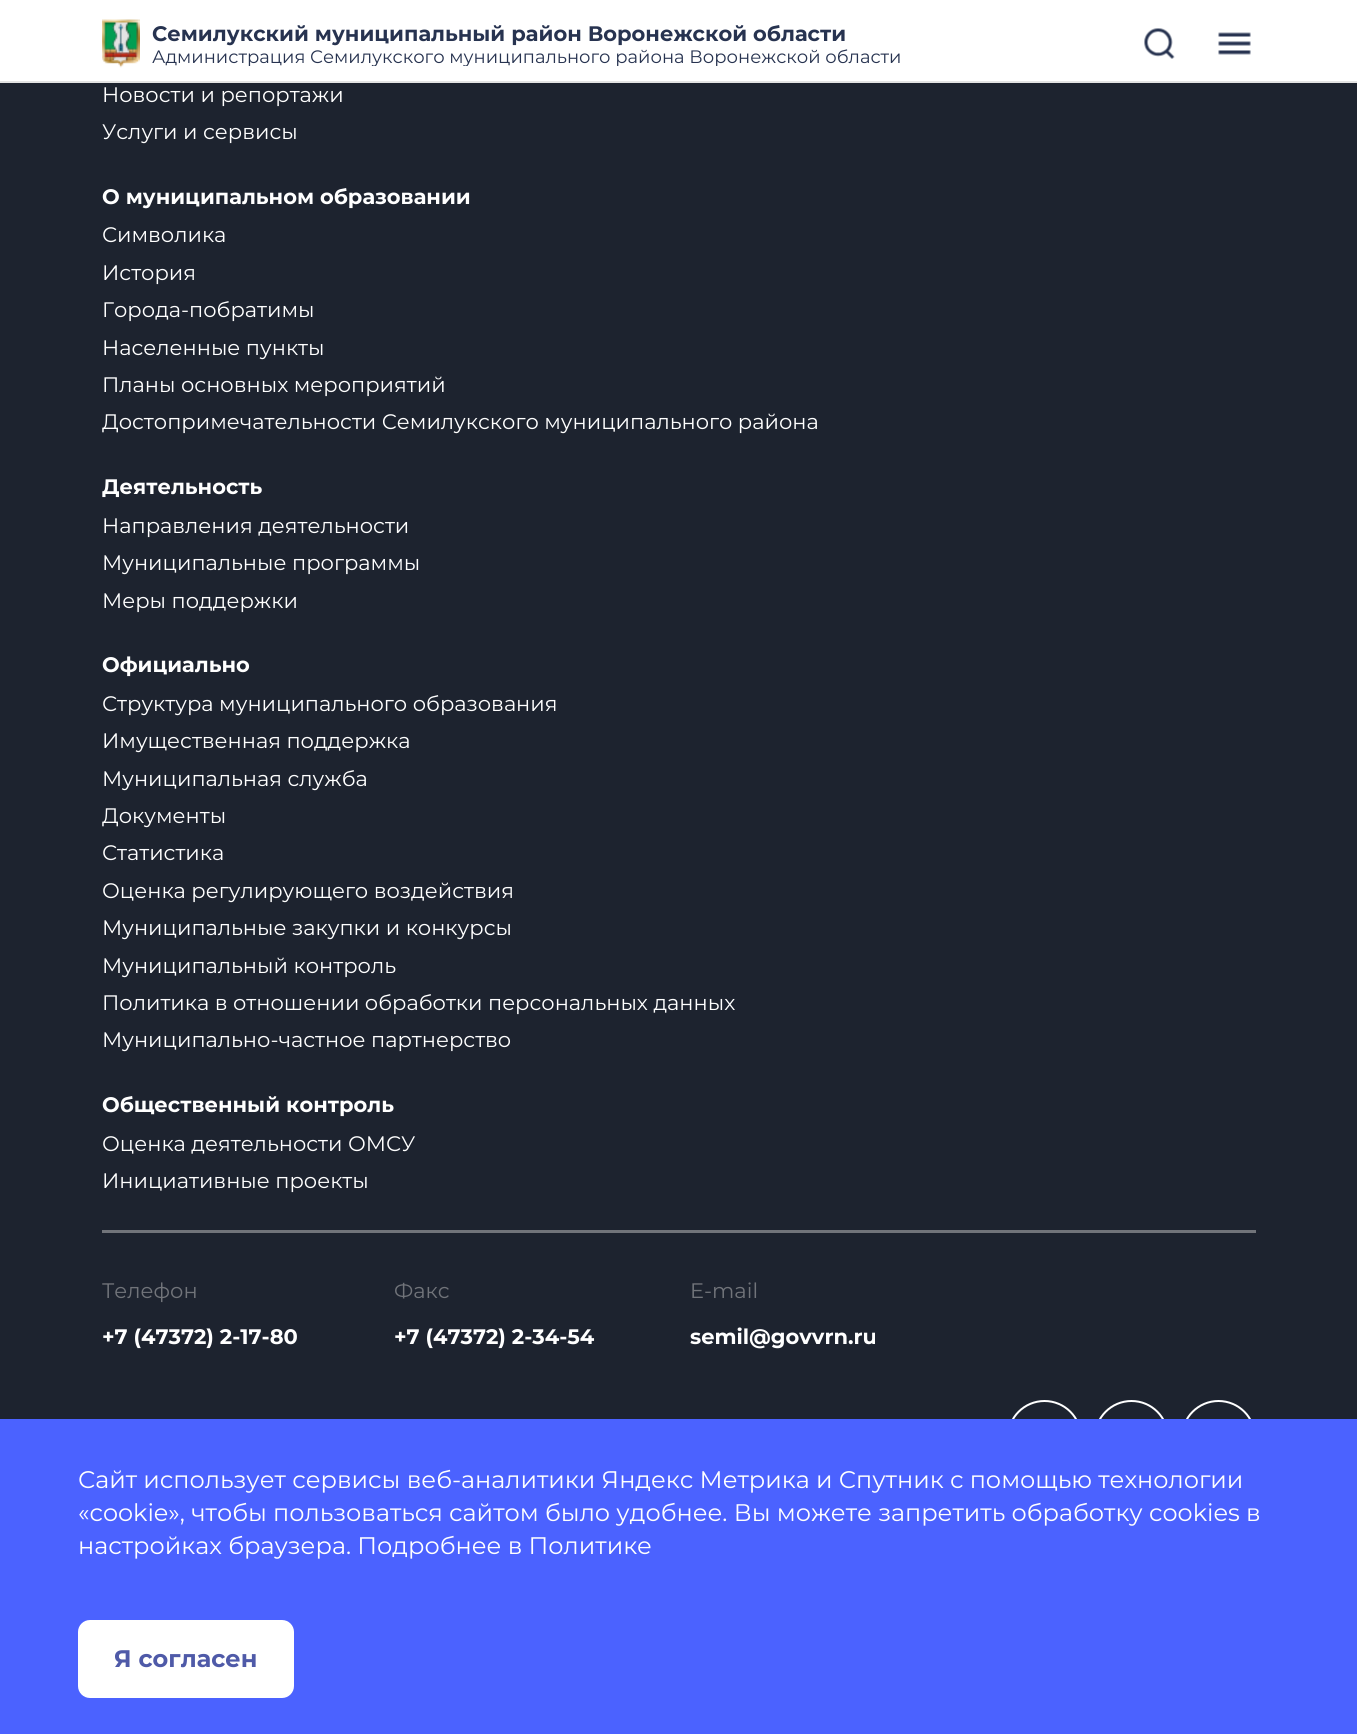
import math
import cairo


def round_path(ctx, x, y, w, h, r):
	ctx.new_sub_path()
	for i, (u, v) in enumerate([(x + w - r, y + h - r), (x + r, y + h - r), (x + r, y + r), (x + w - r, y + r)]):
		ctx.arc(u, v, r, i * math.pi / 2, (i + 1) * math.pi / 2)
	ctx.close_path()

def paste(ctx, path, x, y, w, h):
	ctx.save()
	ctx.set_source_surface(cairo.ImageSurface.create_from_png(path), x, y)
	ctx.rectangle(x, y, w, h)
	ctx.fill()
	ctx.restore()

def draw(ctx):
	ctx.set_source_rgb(0.114, 0.137, 0.184)
	ctx.paint()
	ctx.set_source_rgb(1, 1, 1)
	ctx.rectangle(0, 0, 1357, 81)
	ctx.fill()
	ctx.set_source_rgb(0.89, 0.89, 0.89)
	ctx.rectangle(0, 81, 1357, 2)
	ctx.fill()
	paste(ctx, 'media/1.png', 102, 19, 38, 49)
	ctx.select_font_face('Montserrat', cairo.FONT_SLANT_NORMAL, cairo.FONT_WEIGHT_BOLD)
	ctx.set_font_size(21)
	ctx.set_source_rgb(0.153, 0.2, 0.314)
	ctx.move_to(152, 41)
	ctx.show_text('Семилукский муниципальный район Воронежской области')
	ctx.save()
	ctx.rectangle(152, 48, 954, 18)
	ctx.clip()
	ctx.select_font_face('Montserrat')
	ctx.set_font_size(18)
	ctx.move_to(152, 63)
	ctx.show_text('Администрация Семилукского муниципального района Воронежской области')
	ctx.restore()
	paste(ctx, 'media/2.png', 1144, 28, 31, 31)
	paste(ctx, 'media/3.png', 1218, 32, 33, 23)
	ctx.select_font_face('Montserrat')
	ctx.set_source_rgb(1, 1, 1)
	ctx.move_to(102, 102)
	ctx.show_text('Новости и репортажи')
	ctx.move_to(102, 139)
	ctx.show_text('Услуги и сервисы')
	ctx.select_font_face('Montserrat', cairo.FONT_SLANT_NORMAL, cairo.FONT_WEIGHT_BOLD)
	ctx.move_to(102, 204)
	ctx.show_text('О муниципальном образовании')
	ctx.select_font_face('Montserrat')
	for x, y, s in [
		(102, 242, 'Символика'),
		(102, 280, 'История'),
		(102, 317, 'Города-побратимы'),
		(102, 355, 'Населенные пункты'),
		(102, 392, 'Планы основных мероприятий'),
		(102, 429, 'Достопримечательности Семилукского муниципального района'),
	]:
		ctx.move_to(x, y)
		ctx.show_text(s)
	ctx.select_font_face('Montserrat', cairo.FONT_SLANT_NORMAL, cairo.FONT_WEIGHT_BOLD)
	ctx.move_to(102, 494)
	ctx.show_text('Деятельность')
	ctx.select_font_face('Montserrat')
	for x, y, s in [
		(102, 533, 'Направления деятельности'),
		(102, 570, 'Муниципальные программы'),
		(102, 608, 'Меры поддержки'),
	]:
		ctx.move_to(x, y)
		ctx.show_text(s)
	ctx.select_font_face('Montserrat', cairo.FONT_SLANT_NORMAL, cairo.FONT_WEIGHT_BOLD)
	ctx.move_to(102, 672)
	ctx.show_text('Официально')
	ctx.select_font_face('Montserrat')
	for x, y, s in [
		(102, 711, 'Структура муниципального образования'),
		(102, 748, 'Имущественная поддержка'),
		(102, 786, 'Муниципальная служба'),
		(102, 823, 'Документы'),
		(102, 860, 'Статистика'),
		(102, 898, 'Оценка регулирующего воздействия'),
		(102, 935, 'Муниципальные закупки и конкурсы'),
		(102, 973, 'Муниципальный контроль'),
		(102, 1010, 'Политика в отношении обработки персональных данных'),
		(102, 1047, 'Муниципально-частное партнерство'),
	]:
		ctx.move_to(x, y)
		ctx.show_text(s)
	ctx.select_font_face('Montserrat', cairo.FONT_SLANT_NORMAL, cairo.FONT_WEIGHT_BOLD)
	ctx.move_to(102, 1112)
	ctx.show_text('Общественный контроль')
	ctx.select_font_face('Montserrat')
	ctx.move_to(102, 1151)
	ctx.show_text('Оценка деятельности ОМСУ')
	ctx.move_to(102, 1188)
	ctx.show_text('Инициативные проекты')
	ctx.set_source_rgb(0.443, 0.455, 0.478)
	ctx.rectangle(102, 1230, 1154, 3)
	ctx.fill()
	ctx.move_to(102, 1298)
	ctx.show_text('Телефон')
	ctx.select_font_face('Montserrat', cairo.FONT_SLANT_NORMAL, cairo.FONT_WEIGHT_BOLD)
	ctx.set_source_rgb(1, 1, 1)
	ctx.move_to(102, 1344)
	ctx.show_text('+7 (47372) 2-17-80')
	ctx.select_font_face('Montserrat')
	ctx.set_source_rgb(0.443, 0.455, 0.478)
	ctx.move_to(394, 1298)
	ctx.show_text('Факс')
	ctx.select_font_face('Montserrat', cairo.FONT_SLANT_NORMAL, cairo.FONT_WEIGHT_BOLD)
	ctx.set_source_rgb(1, 1, 1)
	ctx.move_to(394, 1344)
	ctx.show_text('+7 (47372) 2-34-54')
	ctx.select_font_face('Montserrat')
	ctx.set_source_rgb(0.443, 0.455, 0.478)
	ctx.move_to(690, 1298)
	ctx.show_text('E-mail')
	ctx.select_font_face('Montserrat', cairo.FONT_SLANT_NORMAL, cairo.FONT_WEIGHT_BOLD)
	ctx.set_source_rgb(1, 1, 1)
	ctx.move_to(690, 1344)
	ctx.show_text('semil@govvrn.ru')
	ctx.new_path()
	ctx.arc(1044.5, 1437.5, 36.5, 0, 2 * math.pi)
	ctx.stroke()
	ctx.arc(1131.5, 1437.5, 36.5, 0, 2 * math.pi)
	ctx.stroke()
	ctx.arc(1218.5, 1437.5, 36.5, 0, 2 * math.pi)
	ctx.stroke()
	ctx.set_source_rgb(0.294, 0.384, 1)
	ctx.rectangle(0, 1419, 1357, 315)
	ctx.fill()
	ctx.select_font_face('Montserrat')
	ctx.set_font_size(24)
	ctx.set_source_rgb(1, 1, 1)
	for x, y, s in [
		(78, 1488, 'Сайт использует сервисы веб-аналитики Яндекс Метрика и Спутник с помощью технологии'),
		(78, 1521, '«cookie», чтобы пользоваться сайтом было удобнее. Вы можете запретить обработку cookies в'),
		(78, 1554, 'настройках браузера. Подробнее в Политике'),
	]:
		ctx.move_to(x, y)
		ctx.show_text(s)
	round_path(ctx, 78, 1620, 216, 78, 12)
	ctx.fill()
	ctx.select_font_face('Montserrat', cairo.FONT_SLANT_NORMAL, cairo.FONT_WEIGHT_BOLD)
	ctx.set_source_rgb(0.31, 0.353, 0.659)
	ctx.move_to(114, 1667)
	ctx.show_text('Я согласен')


surface = cairo.ImageSurface(cairo.FORMAT_RGB24, 1357, 1734)
ctx = cairo.Context(surface)
options = cairo.FontOptions()
options.set_hint_metrics(cairo.HINT_METRICS_OFF)
options.set_hint_style(cairo.HINT_STYLE_NONE)
ctx.set_font_options(options)
ctx.set_miter_limit(4)
draw(ctx)
surface.write_to_png('image.png')
